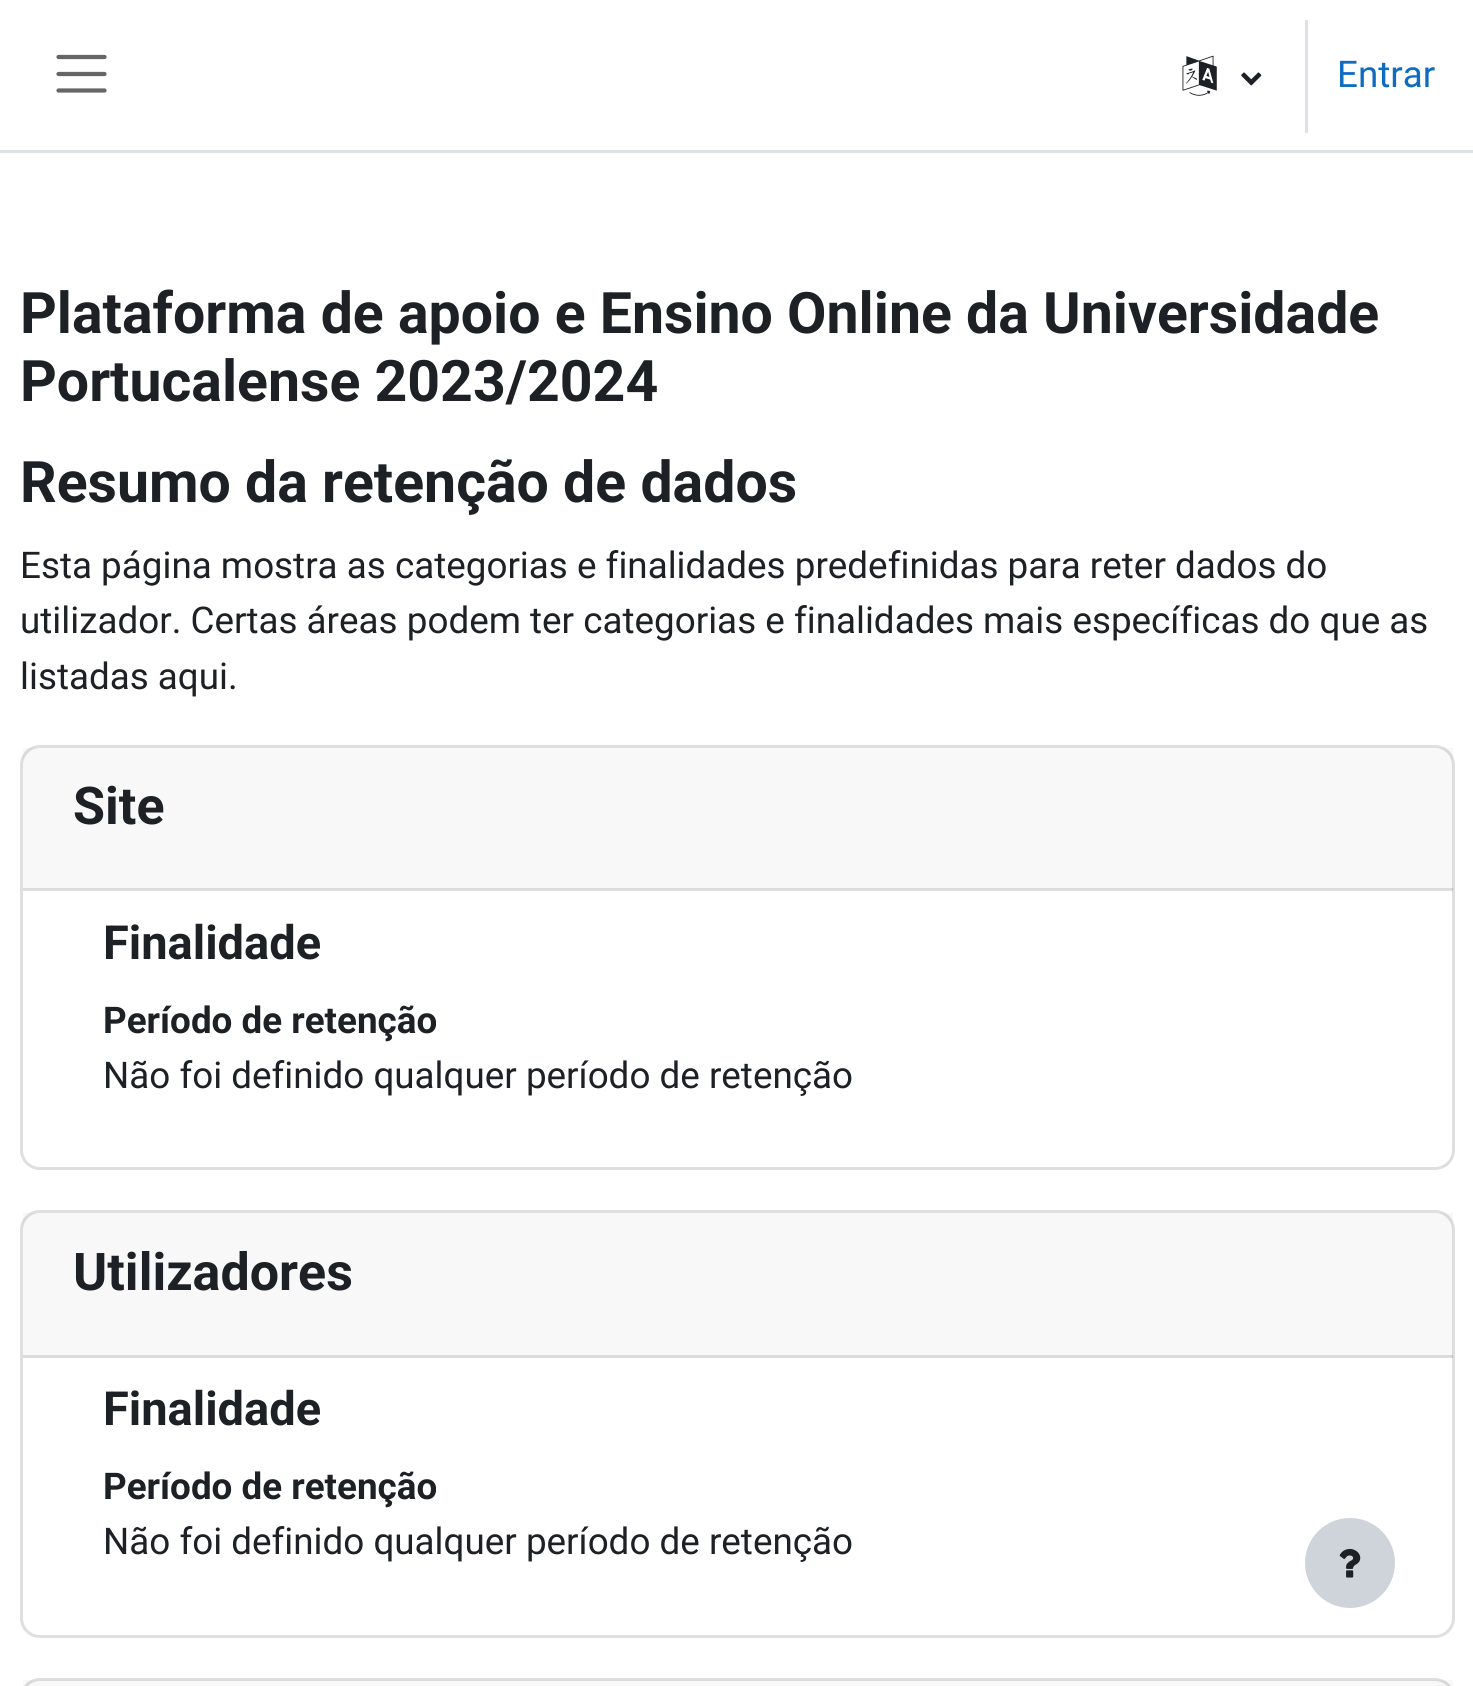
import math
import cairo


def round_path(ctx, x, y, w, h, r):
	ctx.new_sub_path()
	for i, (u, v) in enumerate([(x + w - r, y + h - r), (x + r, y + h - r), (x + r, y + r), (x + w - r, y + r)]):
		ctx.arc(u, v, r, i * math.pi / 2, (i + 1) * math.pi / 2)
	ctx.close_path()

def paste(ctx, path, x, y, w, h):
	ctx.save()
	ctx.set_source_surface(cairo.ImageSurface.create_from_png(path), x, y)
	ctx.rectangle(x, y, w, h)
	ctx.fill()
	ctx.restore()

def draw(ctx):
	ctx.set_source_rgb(1, 1, 1)
	ctx.paint()
	ctx.set_source_rgb(0.871, 0.886, 0.902)
	ctx.rectangle(0, 150, 1473, 3)
	ctx.fill()
	ctx.new_path()
	ctx.move_to(58.5, 57)
	ctx.line_to(104.5, 57)
	ctx.move_to(58.5, 74)
	ctx.line_to(104.5, 74)
	ctx.move_to(58.5, 90.5)
	ctx.line_to(104.5, 90.5)
	ctx.set_source_rgb(0.4, 0.4, 0.4)
	ctx.set_line_width(4.2)
	ctx.set_line_cap(cairo.LINE_CAP_ROUND)
	ctx.stroke()
	paste(ctx, 'media/1.png', 1182, 55, 35, 41)
	paste(ctx, 'media/2.png', 1241, 72, 21, 14)
	ctx.set_source_rgb(0.871, 0.886, 0.902)
	ctx.rectangle(1305, 20, 3, 113)
	ctx.fill()
	ctx.select_font_face('Roboto')
	ctx.set_font_size(36.8)
	ctx.set_source_rgb(0.059, 0.424, 0.749)
	ctx.move_to(1337, 87)
	ctx.show_text('Entrar')
	ctx.select_font_face('Roboto', cairo.FONT_SLANT_NORMAL, cairo.FONT_WEIGHT_BOLD)
	ctx.set_font_size(57.2)
	ctx.set_source_rgb(0.114, 0.129, 0.145)
	for x, y, s in [
		(20, 333, 'Plataforma de apoio e Ensino Online da Universidade'),
		(20, 401, 'Portucalense 2023/2024'),
		(20, 502, 'Resumo da retenção de dados'),
	]:
		ctx.move_to(x, y)
		ctx.show_text(s)
	ctx.select_font_face('Roboto')
	ctx.set_font_size(36.8)
	for x, y, s in [
		(20, 578, 'Esta página mostra as categorias e finalidades predefinidas para reter dados do'),
		(20, 633, 'utilizador. Certas áreas podem ter categorias e finalidades mais específicas do que as'),
		(20, 689, 'listadas aqui.'),
	]:
		ctx.move_to(x, y)
		ctx.show_text(s)
	round_path(ctx, 21.5, 746.5, 1432, 422, 18.5)
	ctx.set_source_rgb(0.875, 0.875, 0.875)
	ctx.set_line_width(3)
	ctx.set_line_cap(cairo.LINE_CAP_BUTT)
	ctx.stroke()
	ctx.set_source_rgba(0, 0, 0, 0.03)
	ctx.rectangle(23, 748, 1430, 142)
	ctx.fill()
	ctx.set_source_rgba(0, 0, 0, 0.12)
	ctx.rectangle(23, 888, 1430, 3)
	ctx.fill()
	ctx.select_font_face('Roboto', cairo.FONT_SLANT_NORMAL, cairo.FONT_WEIGHT_BOLD)
	ctx.set_font_size(52)
	ctx.set_source_rgb(0.114, 0.129, 0.145)
	ctx.move_to(73, 824)
	ctx.show_text('Site')
	ctx.set_font_size(47)
	ctx.move_to(103, 959)
	ctx.show_text('Finalidade')
	ctx.set_font_size(36.8)
	ctx.move_to(103, 1033)
	ctx.show_text('Período de retenção')
	ctx.select_font_face('Roboto')
	ctx.move_to(103, 1088)
	ctx.show_text('Não foi definido qualquer período de retenção')
	round_path(ctx, 21.5, 1211.5, 1432, 425, 18.5)
	ctx.set_source_rgb(0.875, 0.875, 0.875)
	ctx.stroke()
	ctx.set_source_rgba(0, 0, 0, 0.03)
	ctx.rectangle(23, 1213, 1430, 145)
	ctx.fill()
	ctx.set_source_rgba(0, 0, 0, 0.12)
	ctx.rectangle(23, 1355, 1430, 3)
	ctx.fill()
	ctx.select_font_face('Roboto', cairo.FONT_SLANT_NORMAL, cairo.FONT_WEIGHT_BOLD)
	ctx.set_font_size(52)
	ctx.set_source_rgb(0.114, 0.129, 0.145)
	ctx.move_to(73, 1290)
	ctx.show_text('Utilizadores')
	ctx.set_font_size(47)
	ctx.move_to(103, 1425)
	ctx.show_text('Finalidade')
	ctx.set_font_size(36.8)
	ctx.move_to(103, 1499)
	ctx.show_text('Período de retenção')
	ctx.select_font_face('Roboto')
	ctx.move_to(103, 1554)
	ctx.show_text('Não foi definido qualquer período de retenção')
	round_path(ctx, 21.5, 1679.5, 1432, 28, 18.5)
	ctx.set_source_rgb(0.875, 0.875, 0.875)
	ctx.stroke()
	ctx.set_source_rgba(0, 0, 0, 0.03)
	ctx.rectangle(23, 1680, 1430, 6)
	ctx.fill()
	ctx.set_source_rgb(0.808, 0.831, 0.855)
	ctx.arc(1350, 1563, 45, 0, 2 * math.pi)
	ctx.fill()
	paste(ctx, 'media/3.png', 1339, 1548, 22, 30)


surface = cairo.ImageSurface(cairo.FORMAT_RGB24, 1473, 1686)
ctx = cairo.Context(surface)
options = cairo.FontOptions()
options.set_hint_metrics(cairo.HINT_METRICS_OFF)
options.set_hint_style(cairo.HINT_STYLE_NONE)
ctx.set_font_options(options)
ctx.set_miter_limit(4)
draw(ctx)
surface.write_to_png('image.png')
